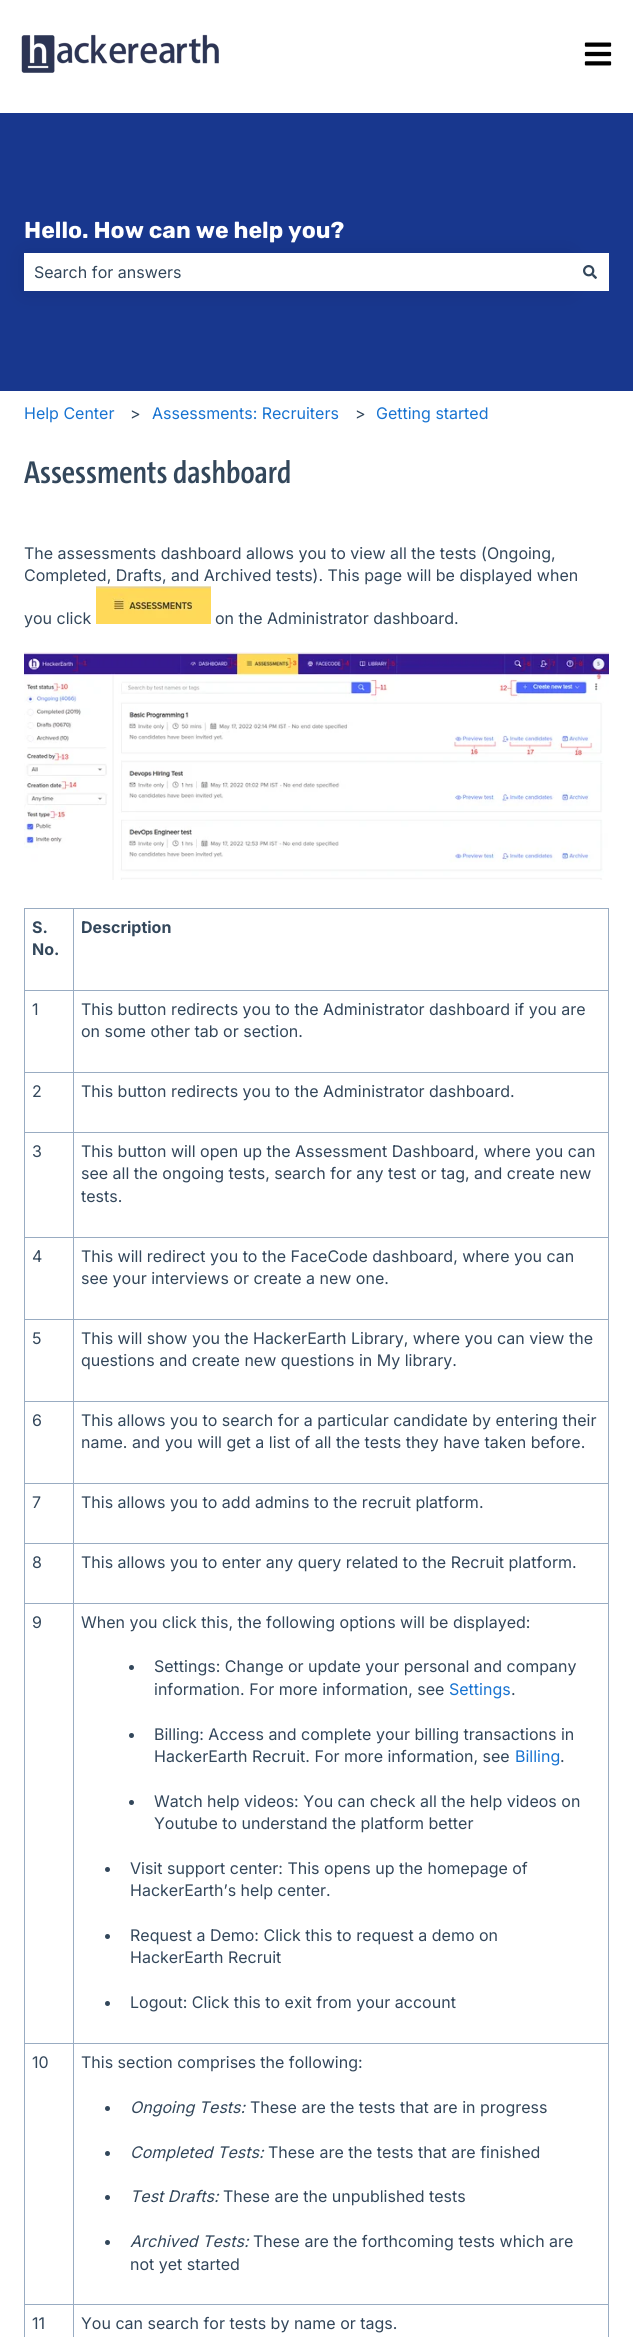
import math
import cairo


def round_path(ctx, x, y, w, h, r):
	ctx.new_sub_path()
	for i, (u, v) in enumerate([(x + w - r, y + h - r), (x + r, y + h - r), (x + r, y + r), (x + w - r, y + r)]):
		ctx.arc(u, v, r, i * math.pi / 2, (i + 1) * math.pi / 2)
	ctx.close_path()

def blur_box(ctx, x, y, w, h, r, blur, alpha):
	ctx.push_group_with_content(cairo.CONTENT_ALPHA)
	ctx.set_operator(cairo.OPERATOR_SOURCE)
	for i in range(15, -16, -2):
		e = blur * i / 6
		if min(w, h) + 2 * e > 0:
			ctx.set_source_rgba(0, 0, 0, alpha * math.erfc((i - 1) / 8.5) / 2)
			round_path(ctx, x - e, y - e, w + 2 * e, h + 2 * e, max(0, min(r + e + blur * .6, min(w, h) / 2 + e)))
			ctx.fill()
	ctx.mask(ctx.pop_group())

def paste(ctx, path, x, y, w, h):
	ctx.save()
	ctx.set_source_surface(cairo.ImageSurface.create_from_png(path), x, y)
	ctx.rectangle(x, y, w, h)
	ctx.fill()
	ctx.restore()

def draw(ctx):
	ctx.set_source_rgb(1, 1, 1)
	ctx.paint()
	paste(ctx, 'media/1.png', 21, 34, 198, 39)
	paste(ctx, 'media/2.png', 584, 42, 28, 24)
	ctx.set_source_rgb(0.094, 0.216, 0.557)
	ctx.rectangle(0, 113, 633, 278)
	ctx.fill()
	ctx.select_font_face('Rubik', cairo.FONT_SLANT_NORMAL, cairo.FONT_WEIGHT_BOLD)
	ctx.set_font_size(23)
	ctx.set_source_rgb(1, 1, 1)
	ctx.move_to(24, 238)
	ctx.show_text('Hello. How can we help you?')
	ctx.set_source_rgb(0, 0, 0)
	blur_box(ctx, 24, 254, 547, 38, 0, 12, 0.08)
	ctx.set_source_rgb(1, 1, 1)
	ctx.rectangle(24, 253, 585, 38)
	ctx.fill()
	ctx.select_font_face('Inter')
	ctx.set_font_size(16)
	ctx.set_source_rgb(0.2, 0.278, 0.357)
	ctx.move_to(34, 278)
	ctx.show_text('Search for answers')
	paste(ctx, 'media/3.png', 583, 265, 14, 14)
	ctx.set_source_rgb(0.09, 0.451, 0.82)
	ctx.move_to(24, 419)
	ctx.show_text('Help Center')
	ctx.set_source_rgb(0.2, 0.278, 0.357)
	ctx.move_to(130, 419)
	ctx.show_text('>')
	ctx.set_source_rgb(0.09, 0.451, 0.82)
	ctx.move_to(152, 419)
	ctx.show_text('Assessments: Recruiters')
	ctx.set_source_rgb(0.2, 0.278, 0.357)
	ctx.move_to(355, 419)
	ctx.show_text('>')
	ctx.set_source_rgb(0.09, 0.451, 0.82)
	ctx.move_to(376, 419)
	ctx.show_text('Getting started')
	ctx.select_font_face('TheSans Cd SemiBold')
	ctx.set_font_size(32)
	ctx.set_source_rgb(0.2, 0.278, 0.357)
	ctx.move_to(24, 483)
	ctx.show_text('Assessments dashboard')
	ctx.select_font_face('Inter')
	ctx.set_font_size(16)
	for x, y, s in [
		(24, 559, 'The assessments dashboard allows you to view all the tests (Ongoing,'),
		(24, 581, 'Completed, Drafts, and Archived tests). This page will be displayed when'),
		(24, 624, 'you click'),
	]:
		ctx.move_to(x, y)
		ctx.show_text(s)
	paste(ctx, 'media/4.png', 96, 586, 115, 38)
	ctx.move_to(215, 624)
	ctx.show_text('on the Administrator dashboard.')
	paste(ctx, 'media/5.png', 24, 652, 585, 228)
	ctx.set_source_rgb(0.6, 0.675, 0.761)
	ctx.rectangle(24, 908, 585, 1)
	ctx.rectangle(608, 908, 1, 1429)
	ctx.rectangle(24, 908, 1, 1429)
	ctx.fill()
	ctx.select_font_face('Inter', cairo.FONT_SLANT_NORMAL, cairo.FONT_WEIGHT_BOLD)
	ctx.set_source_rgb(0.2, 0.278, 0.357)
	ctx.move_to(32, 933)
	ctx.show_text('S.')
	ctx.move_to(32, 955)
	ctx.show_text('No.')
	ctx.set_source_rgb(0.6, 0.675, 0.761)
	ctx.rectangle(73, 990, 536, 1)
	ctx.rectangle(73, 1072, 536, 1)
	ctx.rectangle(73, 1132, 536, 1)
	ctx.rectangle(73, 1237, 536, 1)
	ctx.rectangle(73, 1319, 536, 1)
	ctx.rectangle(73, 1401, 536, 1)
	ctx.rectangle(73, 1483, 536, 1)
	ctx.rectangle(73, 1543, 536, 1)
	ctx.rectangle(73, 1603, 536, 1)
	ctx.rectangle(73, 2043, 536, 1)
	ctx.rectangle(73, 2304, 536, 1)
	ctx.rectangle(73, 2304, 1, 33)
	ctx.rectangle(24, 2304, 50, 1)
	ctx.rectangle(73, 2043, 1, 262)
	ctx.rectangle(24, 2043, 50, 1)
	ctx.rectangle(73, 1603, 1, 441)
	ctx.rectangle(24, 1603, 50, 1)
	ctx.rectangle(73, 1543, 1, 61)
	ctx.rectangle(24, 1543, 50, 1)
	ctx.rectangle(73, 1483, 1, 61)
	ctx.rectangle(24, 1483, 50, 1)
	ctx.rectangle(73, 1401, 1, 83)
	ctx.rectangle(24, 1401, 50, 1)
	ctx.rectangle(73, 1319, 1, 83)
	ctx.rectangle(24, 1319, 50, 1)
	ctx.rectangle(73, 1237, 1, 83)
	ctx.rectangle(24, 1237, 50, 1)
	ctx.rectangle(73, 1132, 1, 106)
	ctx.rectangle(24, 1132, 50, 1)
	ctx.rectangle(73, 1072, 1, 61)
	ctx.rectangle(24, 1072, 50, 1)
	ctx.rectangle(73, 990, 1, 83)
	ctx.rectangle(24, 990, 50, 1)
	ctx.rectangle(73, 908, 1, 83)
	ctx.fill()
	ctx.set_source_rgb(0.2, 0.278, 0.357)
	ctx.move_to(81, 933)
	ctx.show_text('Description')
	ctx.select_font_face('Inter')
	for x, y, s in [
		(32, 1015, '1'),
		(81, 1015, 'This button redirects you to the Administrator dashboard if you are'),
		(81, 1037, 'on some other tab or section.'),
		(32, 1097, '2'),
		(81, 1097, 'This button redirects you to the Administrator dashboard.'),
		(32, 1157, '3'),
		(81, 1157, 'This button will open up the Assessment Dashboard, where you can'),
		(81, 1179, 'see all the ongoing tests, search for any test or tag, and create new'),
		(81, 1202, 'tests.'),
		(32, 1262, '4'),
		(81, 1262, 'This will redirect you to the FaceCode dashboard, where you can'),
		(81, 1284, 'see your interviews or create a new one.'),
		(32, 1344, '5'),
		(81, 1344, 'This will show you the HackerEarth Library, where you can view the'),
		(81, 1366, 'questions and create new questions in My library.'),
		(32, 1426, '6'),
		(81, 1426, 'This allows you to search for a particular candidate by entering their'),
		(81, 1448, 'name. and you will get a list of all the tests they have taken before.'),
		(32, 1508, '7'),
		(81, 1508, 'This allows you to add admins to the recruit platform.'),
		(32, 1568, '8'),
		(81, 1568, 'This allows you to enter any query related to the Recruit platform.'),
		(32, 1628, '9'),
		(81, 1628, 'When you click this, the following options will be displayed:'),
	]:
		ctx.move_to(x, y)
		ctx.show_text(s)
	ctx.new_path()
	ctx.arc(131.5, 1667.5, 2.5, 0, 2 * math.pi)
	ctx.fill()
	ctx.move_to(154, 1672)
	ctx.show_text('Settings: Change or update your personal and company')
	ctx.move_to(154, 1695)
	ctx.show_text('information. For more information, see')
	ctx.set_source_rgb(0.09, 0.451, 0.82)
	ctx.move_to(449, 1695)
	ctx.show_text('Settings')
	ctx.set_source_rgb(0.2, 0.278, 0.357)
	ctx.move_to(511, 1695)
	ctx.show_text('.')
	ctx.new_path()
	ctx.arc(131.5, 1735.5, 2.5, 0, 2 * math.pi)
	ctx.fill()
	ctx.move_to(154, 1740)
	ctx.show_text('Billing: Access and complete your billing transactions in')
	ctx.move_to(154, 1762)
	ctx.show_text('HackerEarth Recruit. For more information, see')
	ctx.set_source_rgb(0.09, 0.451, 0.82)
	ctx.move_to(515, 1762)
	ctx.show_text('Billing')
	ctx.set_source_rgb(0.2, 0.278, 0.357)
	ctx.move_to(560, 1762)
	ctx.show_text('.')
	ctx.new_path()
	ctx.arc(131.5, 1802.5, 2.5, 0, 2 * math.pi)
	ctx.fill()
	ctx.move_to(154, 1807)
	ctx.show_text('Watch help videos: You can check all the help videos on')
	ctx.move_to(154, 1829)
	ctx.show_text('Youtube to understand the platform better')
	ctx.new_path()
	ctx.arc(107.5, 1869.5, 2.5, 0, 2 * math.pi)
	ctx.fill()
	ctx.move_to(130, 1874)
	ctx.show_text('Visit support center: This opens up the homepage of')
	ctx.move_to(130, 1896)
	ctx.show_text('HackerEarth’s help center.')
	ctx.new_path()
	ctx.arc(107.5, 1936.5, 2.5, 0, 2 * math.pi)
	ctx.fill()
	ctx.move_to(130, 1941)
	ctx.show_text('Request a Demo: Click this to request a demo on')
	ctx.move_to(130, 1963)
	ctx.show_text('HackerEarth Recruit')
	ctx.new_path()
	ctx.arc(107.5, 2003.5, 2.5, 0, 2 * math.pi)
	ctx.fill()
	for x, y, s in [
		(130, 2008, 'Logout: Click this to exit from your account'),
		(32, 2068, '10'),
		(81, 2068, 'This section comprises the following:'),
	]:
		ctx.move_to(x, y)
		ctx.show_text(s)
	ctx.new_path()
	ctx.arc(107.5, 2108.5, 2.5, 0, 2 * math.pi)
	ctx.fill()
	ctx.select_font_face('Inter', cairo.FONT_SLANT_ITALIC)
	ctx.move_to(130, 2113)
	ctx.show_text('Ongoing Tests:')
	ctx.select_font_face('Inter')
	ctx.move_to(250, 2113)
	ctx.show_text('These are the tests that are in progress')
	ctx.new_path()
	ctx.arc(107.5, 2153.5, 2.5, 0, 2 * math.pi)
	ctx.fill()
	ctx.select_font_face('Inter', cairo.FONT_SLANT_ITALIC)
	ctx.move_to(130, 2158)
	ctx.show_text('Completed Tests:')
	ctx.select_font_face('Inter')
	ctx.move_to(268, 2158)
	ctx.show_text('These are the tests that are finished')
	ctx.new_path()
	ctx.arc(107.5, 2197.5, 2.5, 0, 2 * math.pi)
	ctx.fill()
	ctx.select_font_face('Inter', cairo.FONT_SLANT_ITALIC)
	ctx.move_to(130, 2202)
	ctx.show_text('Test Drafts:')
	ctx.select_font_face('Inter')
	ctx.move_to(223, 2202)
	ctx.show_text('These are the unpublished tests')
	ctx.new_path()
	ctx.arc(107.5, 2242.5, 2.5, 0, 2 * math.pi)
	ctx.fill()
	ctx.select_font_face('Inter', cairo.FONT_SLANT_ITALIC)
	ctx.move_to(130, 2247)
	ctx.show_text('Archived Tests:')
	ctx.select_font_face('Inter')
	for x, y, s in [
		(253, 2247, 'These are the forthcoming tests which are'),
		(130, 2270, 'not yet started'),
		(32, 2329, '11'),
		(81, 2329, 'You can search for tests by name or tags.'),
	]:
		ctx.move_to(x, y)
		ctx.show_text(s)


surface = cairo.ImageSurface(cairo.FORMAT_RGB24, 633, 2337)
ctx = cairo.Context(surface)
options = cairo.FontOptions()
options.set_hint_metrics(cairo.HINT_METRICS_OFF)
options.set_hint_style(cairo.HINT_STYLE_NONE)
ctx.set_font_options(options)
ctx.set_miter_limit(4)
draw(ctx)
surface.write_to_png('image.png')
